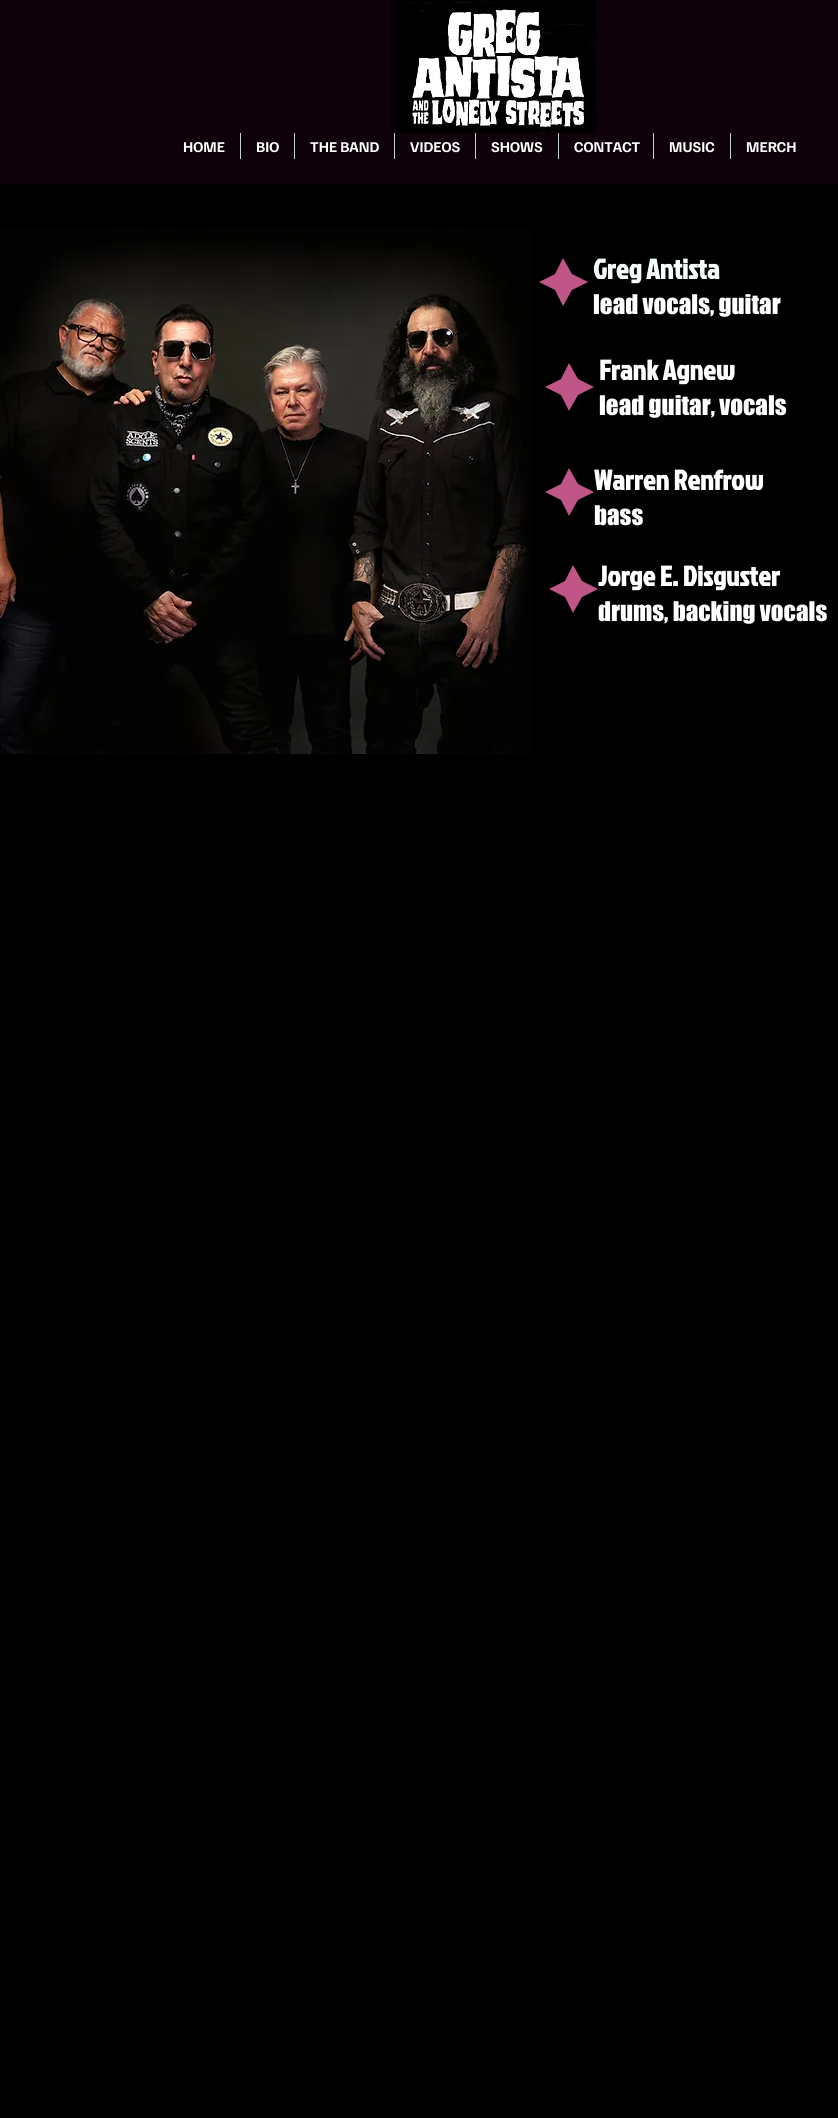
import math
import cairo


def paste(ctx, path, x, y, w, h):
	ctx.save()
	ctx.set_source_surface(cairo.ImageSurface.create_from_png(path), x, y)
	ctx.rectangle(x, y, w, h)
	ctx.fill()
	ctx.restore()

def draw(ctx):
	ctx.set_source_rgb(0, 0, 0)
	ctx.paint()
	ctx.set_source_rgb(0.055, 0.004, 0.039)
	ctx.rectangle(0, 0, 838, 184)
	ctx.fill()
	paste(ctx, 'media/1.png', 391, 0, 205, 133)
	ctx.select_font_face('Familjen Grotesk', cairo.FONT_SLANT_NORMAL, cairo.FONT_WEIGHT_BOLD)
	ctx.set_font_size(15)
	ctx.set_source_rgb(1, 1, 1)
	ctx.move_to(183, 152)
	ctx.show_text('HOME')
	ctx.set_source_rgb(0.773, 0.816, 0.851)
	ctx.rectangle(240, 133, 1, 26)
	ctx.fill()
	ctx.set_source_rgb(1, 1, 1)
	ctx.move_to(256, 152)
	ctx.show_text('BIO')
	ctx.set_source_rgb(0.773, 0.816, 0.851)
	ctx.rectangle(294, 133, 1, 26)
	ctx.fill()
	ctx.set_source_rgb(1, 1, 1)
	ctx.move_to(310, 152)
	ctx.show_text('THE BAND')
	ctx.set_source_rgb(0.773, 0.816, 0.851)
	ctx.rectangle(394, 133, 1, 26)
	ctx.fill()
	ctx.set_source_rgb(1, 1, 1)
	ctx.move_to(410, 152)
	ctx.show_text('VIDEOS')
	ctx.set_source_rgb(0.773, 0.816, 0.851)
	ctx.rectangle(475, 133, 1, 26)
	ctx.fill()
	ctx.set_source_rgb(1, 1, 1)
	ctx.move_to(491, 152)
	ctx.show_text('SHOWS')
	ctx.set_source_rgb(0.773, 0.816, 0.851)
	ctx.rectangle(558, 133, 1, 26)
	ctx.fill()
	ctx.set_source_rgb(1, 1, 1)
	ctx.move_to(574, 152)
	ctx.show_text('CONTACT')
	ctx.set_source_rgb(0.773, 0.816, 0.851)
	ctx.rectangle(653, 133, 1, 26)
	ctx.fill()
	ctx.set_source_rgb(1, 1, 1)
	ctx.move_to(669, 152)
	ctx.show_text('MUSIC')
	ctx.set_source_rgb(0.773, 0.816, 0.851)
	ctx.rectangle(730, 133, 1, 26)
	ctx.fill()
	ctx.set_source_rgb(1, 1, 1)
	ctx.move_to(746, 152)
	ctx.show_text('MERCH')
	paste(ctx, 'media/2.png', 0, 227, 531, 527)
	ctx.set_source_rgb(0.749, 0.337, 0.529)
	ctx.new_path()
	ctx.move_to(563, 258)
	ctx.line_to(572, 274)
	ctx.line_to(588, 282)
	ctx.line_to(572, 290)
	ctx.line_to(563, 306)
	ctx.line_to(555, 290)
	ctx.line_to(539, 282)
	ctx.line_to(555, 274)
	ctx.close_path()
	ctx.fill()
	ctx.select_font_face('Jockey One', cairo.FONT_SLANT_NORMAL, cairo.FONT_WEIGHT_BOLD)
	ctx.set_font_size(28)
	ctx.set_source_rgb(0.961, 1, 0.996)
	ctx.move_to(593, 279)
	ctx.show_text('Greg Antista')
	ctx.select_font_face('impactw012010')
	ctx.set_font_size(25)
	ctx.set_source_rgb(1, 1, 1)
	ctx.move_to(593, 314)
	ctx.show_text('lead vocals, guitar')
	ctx.set_source_rgb(0.749, 0.337, 0.529)
	ctx.new_path()
	ctx.move_to(569, 363)
	ctx.line_to(578, 379)
	ctx.line_to(594, 387)
	ctx.line_to(578, 395)
	ctx.line_to(569, 411)
	ctx.line_to(561, 395)
	ctx.line_to(545, 387)
	ctx.line_to(561, 379)
	ctx.close_path()
	ctx.fill()
	ctx.select_font_face('Jockey One', cairo.FONT_SLANT_NORMAL, cairo.FONT_WEIGHT_BOLD)
	ctx.set_font_size(28)
	ctx.set_source_rgb(1, 1, 1)
	ctx.move_to(599, 380)
	ctx.show_text('Frank Agnew')
	ctx.select_font_face('impactw012010')
	ctx.set_font_size(25)
	ctx.move_to(599, 415)
	ctx.show_text('lead guitar, vocals')
	ctx.set_source_rgb(0.749, 0.337, 0.529)
	ctx.new_path()
	ctx.move_to(569, 468)
	ctx.line_to(578, 484)
	ctx.line_to(594, 492)
	ctx.line_to(578, 500)
	ctx.line_to(569, 516)
	ctx.line_to(561, 500)
	ctx.line_to(545, 492)
	ctx.line_to(561, 484)
	ctx.close_path()
	ctx.fill()
	ctx.select_font_face('Jockey One', cairo.FONT_SLANT_NORMAL, cairo.FONT_WEIGHT_BOLD)
	ctx.set_font_size(28)
	ctx.set_source_rgb(1, 1, 1)
	ctx.move_to(594, 490)
	ctx.show_text('Warren Renfrow')
	ctx.select_font_face('impactw012010')
	ctx.set_font_size(25)
	ctx.move_to(594, 525)
	ctx.show_text('bass')
	ctx.set_source_rgb(0.749, 0.337, 0.529)
	ctx.new_path()
	ctx.move_to(573, 565)
	ctx.line_to(582, 581)
	ctx.line_to(598, 589)
	ctx.line_to(582, 597)
	ctx.line_to(573, 613)
	ctx.line_to(565, 597)
	ctx.line_to(549, 589)
	ctx.line_to(565, 581)
	ctx.close_path()
	ctx.fill()
	ctx.select_font_face('Jockey One', cairo.FONT_SLANT_NORMAL, cairo.FONT_WEIGHT_BOLD)
	ctx.set_font_size(28)
	ctx.set_source_rgb(1, 1, 1)
	ctx.move_to(598, 586)
	ctx.show_text('Jorge E. Disguster')
	ctx.select_font_face('impactw012010')
	ctx.set_font_size(25)
	ctx.move_to(598, 621)
	ctx.show_text('drums, backing vocals')


surface = cairo.ImageSurface(cairo.FORMAT_RGB24, 838, 2118)
ctx = cairo.Context(surface)
options = cairo.FontOptions()
options.set_hint_metrics(cairo.HINT_METRICS_OFF)
options.set_hint_style(cairo.HINT_STYLE_NONE)
ctx.set_font_options(options)
ctx.set_miter_limit(4)
draw(ctx)
surface.write_to_png('image.png')
